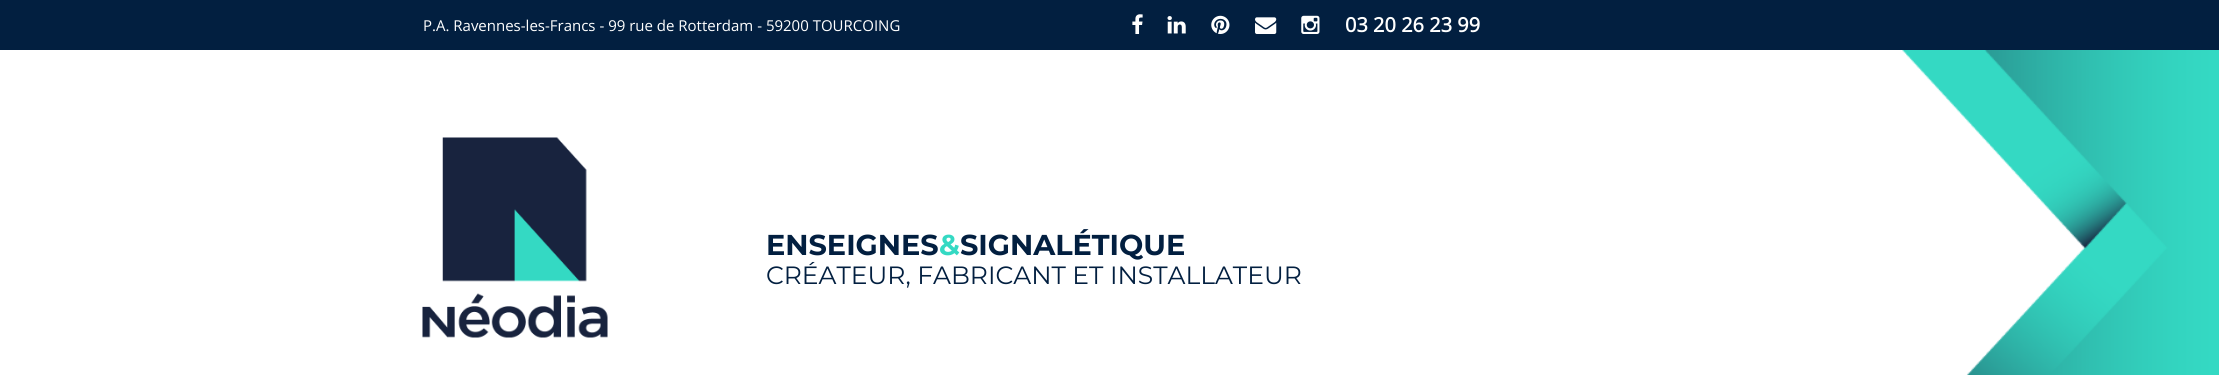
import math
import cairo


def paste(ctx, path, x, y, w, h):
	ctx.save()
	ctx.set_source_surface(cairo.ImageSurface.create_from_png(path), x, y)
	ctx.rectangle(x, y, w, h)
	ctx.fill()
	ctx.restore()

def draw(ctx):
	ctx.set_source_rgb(1, 1, 1)
	ctx.paint()
	ctx.set_source_rgb(0.008, 0.122, 0.251)
	ctx.rectangle(0, 0, 2219, 50)
	ctx.fill()
	ctx.select_font_face('Open Sans')
	ctx.set_font_size(15)
	ctx.set_source_rgb(1, 1, 1)
	ctx.move_to(423, 31)
	ctx.show_text('P.A. Ravennes-les-Francs - 99 rue de Rotterdam - 59200 TOURCOING')
	paste(ctx, 'media/1.png', 1132, 14, 11, 20)
	paste(ctx, 'media/2.png', 1167, 16, 19, 18)
	paste(ctx, 'media/3.png', 1211, 15, 19, 19)
	paste(ctx, 'media/4.png', 1255, 17, 22, 17)
	paste(ctx, 'media/5.png', 1301, 15, 19, 19)
	ctx.select_font_face('Open Sans', cairo.FONT_SLANT_NORMAL, cairo.FONT_WEIGHT_BOLD)
	ctx.set_font_size(20)
	ctx.move_to(1345, 32)
	ctx.show_text('03 20 26 23 99')
	paste(ctx, 'media/6.png', 1902, 50, 317, 325)
	paste(ctx, 'media/7.png', 422, 137, 186, 201)
	ctx.select_font_face('Montserrat', cairo.FONT_SLANT_NORMAL, cairo.FONT_WEIGHT_BOLD)
	ctx.set_font_size(28.75)
	ctx.set_source_rgb(0.008, 0.122, 0.251)
	ctx.move_to(766, 255)
	ctx.show_text('ENSEIGNES')
	ctx.set_source_rgb(0.204, 0.851, 0.765)
	ctx.move_to(939, 255)
	ctx.show_text('&')
	ctx.set_source_rgb(0.008, 0.122, 0.251)
	ctx.move_to(960, 255)
	ctx.show_text('SIGNALÉTIQUE')
	ctx.select_font_face('Montserrat')
	ctx.set_font_size(25)
	ctx.move_to(766, 284)
	ctx.show_text('CRÉATEUR, FABRICANT ET INSTALLATEUR')


surface = cairo.ImageSurface(cairo.FORMAT_RGB24, 2219, 375)
ctx = cairo.Context(surface)
options = cairo.FontOptions()
options.set_hint_metrics(cairo.HINT_METRICS_OFF)
options.set_hint_style(cairo.HINT_STYLE_NONE)
ctx.set_font_options(options)
ctx.set_miter_limit(4)
draw(ctx)
surface.write_to_png('image.png')
